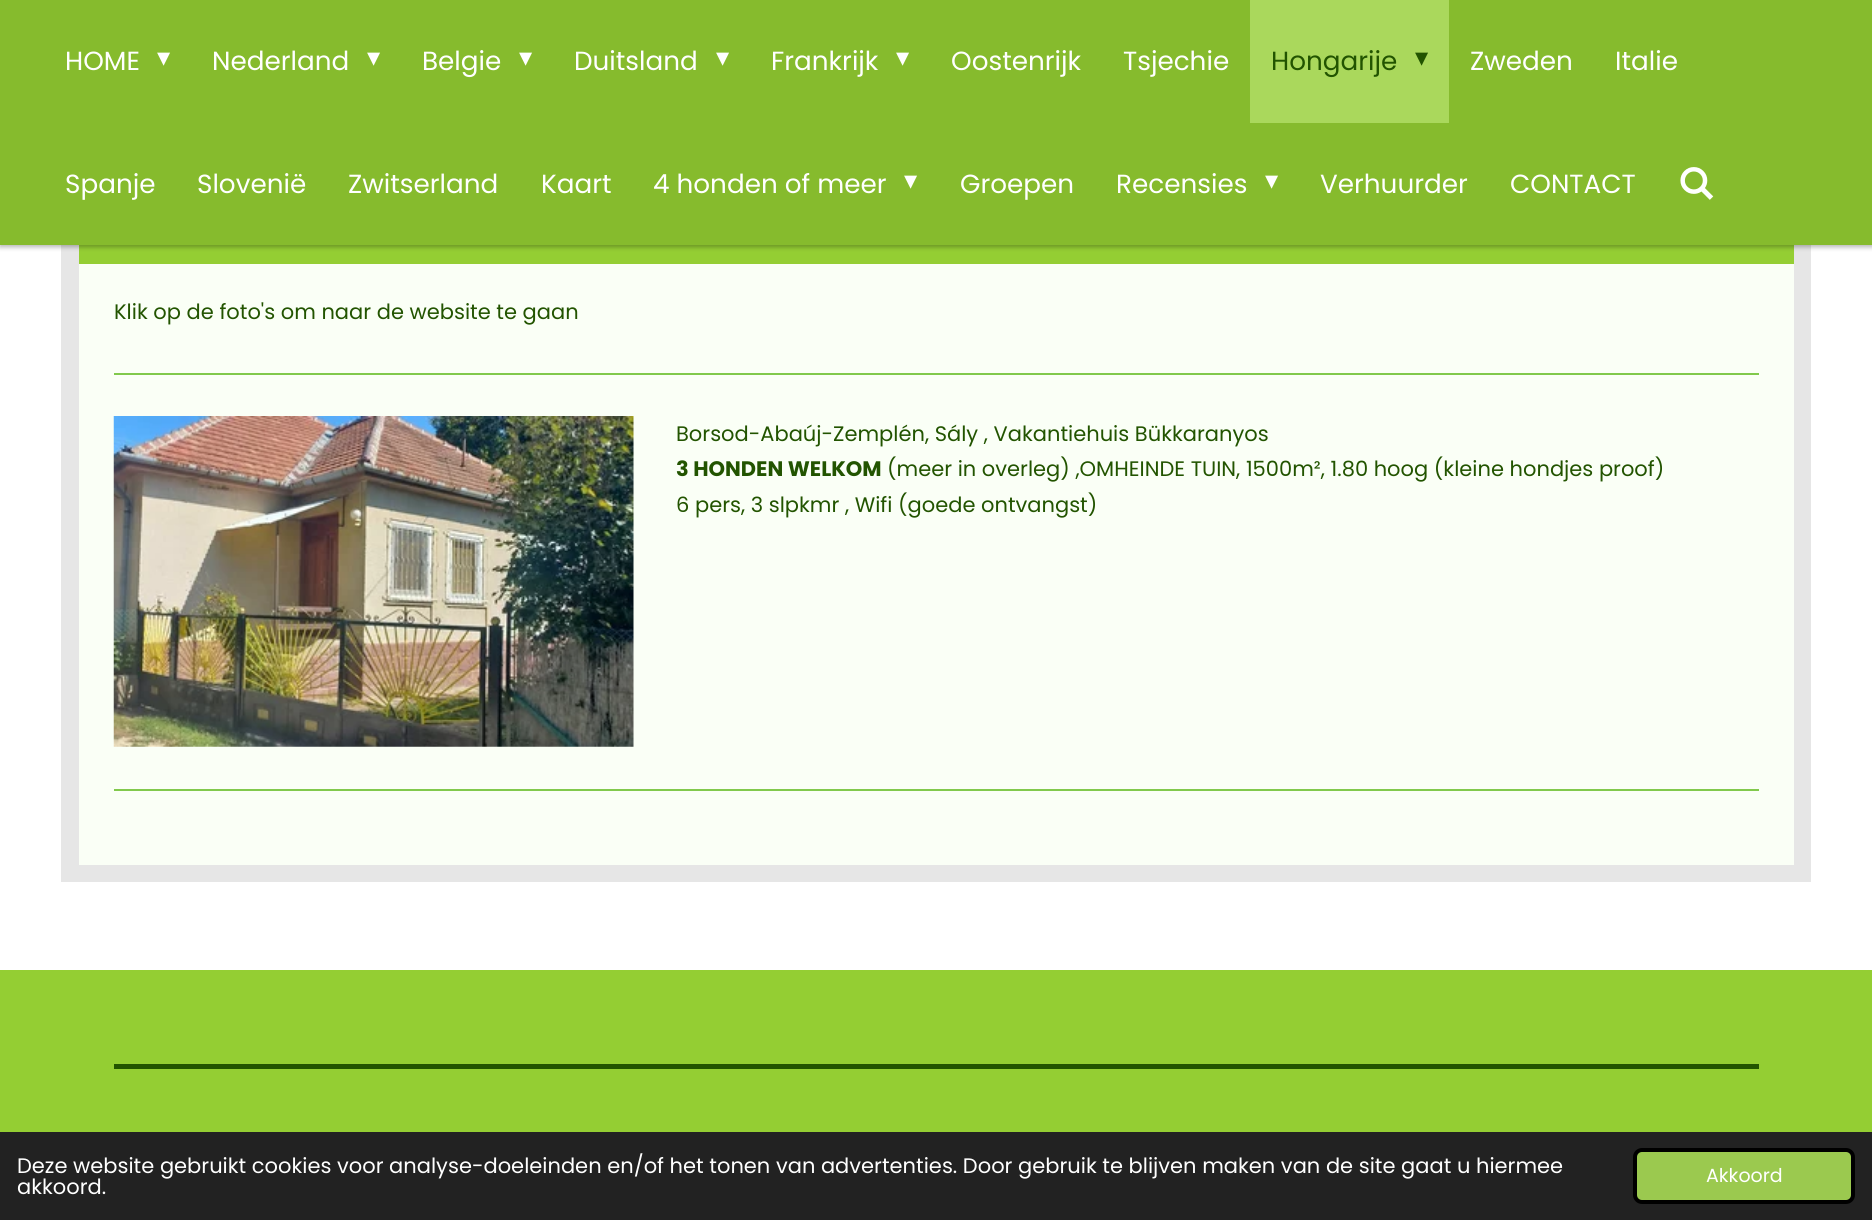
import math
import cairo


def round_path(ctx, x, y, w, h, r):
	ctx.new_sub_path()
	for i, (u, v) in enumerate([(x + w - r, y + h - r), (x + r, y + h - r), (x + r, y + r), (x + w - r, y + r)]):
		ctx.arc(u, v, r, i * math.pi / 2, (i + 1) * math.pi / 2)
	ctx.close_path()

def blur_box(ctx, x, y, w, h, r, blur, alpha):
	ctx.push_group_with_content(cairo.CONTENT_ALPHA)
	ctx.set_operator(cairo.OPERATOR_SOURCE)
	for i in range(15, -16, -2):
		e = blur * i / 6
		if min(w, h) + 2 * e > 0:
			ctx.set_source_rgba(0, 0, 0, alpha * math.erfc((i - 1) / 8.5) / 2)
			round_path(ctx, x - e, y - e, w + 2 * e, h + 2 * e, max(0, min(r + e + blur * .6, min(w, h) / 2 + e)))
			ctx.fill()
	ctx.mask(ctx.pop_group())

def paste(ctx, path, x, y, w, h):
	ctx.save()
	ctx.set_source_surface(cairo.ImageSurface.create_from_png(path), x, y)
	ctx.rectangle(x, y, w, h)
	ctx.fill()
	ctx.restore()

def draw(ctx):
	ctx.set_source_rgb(1, 1, 1)
	ctx.paint()
	ctx.set_source_rgb(0.902, 0.902, 0.902)
	ctx.rectangle(61, 245, 1750, 637)
	ctx.fill()
	ctx.set_source_rgb(0.58, 0.808, 0.2)
	ctx.rectangle(79, 245, 1715, 19)
	ctx.fill()
	ctx.set_source_rgb(0, 0, 0)
	blur_box(ctx, 0, -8, 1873, 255, 0, 2.5, 0.3)
	ctx.set_source_rgb(0.525, 0.733, 0.176)
	ctx.rectangle(0, 0, 1872, 245)
	ctx.fill()
	ctx.select_font_face('Poppins')
	ctx.set_font_size(26.25)
	ctx.set_source_rgb(1, 1, 1)
	ctx.move_to(65, 70)
	ctx.show_text('HOME')
	ctx.select_font_face('DejaVu Sans')
	ctx.move_to(157, 66)
	ctx.show_text('▾')
	ctx.select_font_face('Poppins')
	ctx.move_to(212, 70)
	ctx.show_text('Nederland')
	ctx.select_font_face('DejaVu Sans')
	ctx.move_to(367, 66)
	ctx.show_text('▾')
	ctx.select_font_face('Poppins')
	ctx.move_to(422, 70)
	ctx.show_text('Belgie')
	ctx.select_font_face('DejaVu Sans')
	ctx.move_to(519, 66)
	ctx.show_text('▾')
	ctx.select_font_face('Poppins')
	ctx.move_to(574, 70)
	ctx.show_text('Duitsland')
	ctx.select_font_face('DejaVu Sans')
	ctx.move_to(716, 66)
	ctx.show_text('▾')
	ctx.select_font_face('Poppins')
	ctx.move_to(771, 70)
	ctx.show_text('Frankrijk')
	ctx.select_font_face('DejaVu Sans')
	ctx.move_to(896, 66)
	ctx.show_text('▾')
	ctx.select_font_face('Poppins')
	ctx.move_to(951, 70)
	ctx.show_text('Oostenrijk')
	ctx.move_to(1123, 70)
	ctx.show_text('Tsjechie')
	ctx.set_source_rgb(0.667, 0.847, 0.361)
	ctx.rectangle(1250, 0, 199, 123)
	ctx.fill()
	ctx.set_source_rgb(0.133, 0.329, 0)
	ctx.move_to(1271, 70)
	ctx.show_text('Hongarije')
	ctx.select_font_face('DejaVu Sans')
	ctx.move_to(1415, 66)
	ctx.show_text('▾')
	ctx.select_font_face('Poppins')
	ctx.set_source_rgb(1, 1, 1)
	for x, y, s in [
		(1470, 70, 'Zweden'),
		(1615, 70, 'Italie'),
		(65, 193, 'Spanje'),
		(197, 193, 'Slovenië'),
		(348, 193, 'Zwitserland'),
		(541, 193, 'Kaart'),
		(653, 193, '4 honden of meer'),
	]:
		ctx.move_to(x, y)
		ctx.show_text(s)
	ctx.select_font_face('DejaVu Sans')
	ctx.move_to(904, 189)
	ctx.show_text('▾')
	ctx.select_font_face('Poppins')
	ctx.move_to(960, 193)
	ctx.show_text('Groepen')
	ctx.move_to(1116, 193)
	ctx.show_text('Recensies')
	ctx.select_font_face('DejaVu Sans')
	ctx.move_to(1265, 189)
	ctx.show_text('▾')
	ctx.select_font_face('Poppins')
	ctx.move_to(1320, 193)
	ctx.show_text('Verhuurder')
	ctx.move_to(1510, 193)
	ctx.show_text('CONTACT')
	paste(ctx, 'media/1.png', 1680, 167, 34, 33)
	ctx.set_source_rgb(0.98, 1, 0.961)
	ctx.rectangle(79, 264, 1715, 601)
	ctx.fill()
	ctx.set_font_size(21)
	ctx.set_source_rgb(0.133, 0.329, 0)
	ctx.move_to(114, 319)
	ctx.show_text('Klik op de foto\'s om naar de website te gaan')
	ctx.set_source_rgb(0.506, 0.788, 0.298)
	ctx.rectangle(114, 373, 1645, 2)
	ctx.fill()
	paste(ctx, 'media/2.png', 113, 416, 521, 331)
	ctx.set_source_rgb(0.133, 0.329, 0)
	ctx.move_to(676, 441)
	ctx.show_text('Borsod-Abaúj-Zemplén, Sály , Vakantiehuis Bükkaranyos')
	ctx.select_font_face('Poppins', cairo.FONT_SLANT_NORMAL, cairo.FONT_WEIGHT_BOLD)
	ctx.move_to(676, 476)
	ctx.show_text('3 HONDEN WELKOM')
	ctx.select_font_face('Poppins')
	ctx.move_to(887, 476)
	ctx.show_text('(meer in overleg) ,OMHEINDE TUIN, 1500m², 1.80 hoog (kleine hondjes proof)')
	ctx.move_to(676, 512)
	ctx.show_text('6 pers, 3 slpkmr , Wifi (goede ontvangst)')
	ctx.set_source_rgb(0.506, 0.788, 0.298)
	ctx.rectangle(114, 789, 1645, 2)
	ctx.fill()
	ctx.set_source_rgb(0.58, 0.808, 0.2)
	ctx.rectangle(0, 970, 1872, 162)
	ctx.fill()
	ctx.set_source_rgb(0.133, 0.329, 0)
	ctx.rectangle(114, 1064, 1645, 5)
	ctx.fill()
	ctx.set_source_rgb(0.133, 0.133, 0.133)
	ctx.rectangle(0, 1132, 1872, 88)
	ctx.fill()
	ctx.set_source_rgb(1, 1, 1)
	ctx.move_to(17, 1173)
	ctx.show_text('Deze website gebruikt cookies voor analyse-doeleinden en/of het tonen van advertenties. Door gebruik te blijven maken van de site gaat u hiermee')
	ctx.move_to(17, 1194)
	ctx.show_text('akkoord.')
	ctx.set_source_rgb(0.608, 0.788, 0.31)
	round_path(ctx, 1635, 1150, 218, 52, 7)
	ctx.fill_preserve()
	ctx.set_source_rgb(0, 0, 0)
	ctx.set_line_width(4)
	ctx.stroke()
	ctx.set_font_size(19)
	ctx.set_source_rgb(1, 1, 1)
	ctx.move_to(1706, 1182)
	ctx.show_text('Akkoord')


surface = cairo.ImageSurface(cairo.FORMAT_RGB24, 1872, 1220)
ctx = cairo.Context(surface)
options = cairo.FontOptions()
options.set_hint_metrics(cairo.HINT_METRICS_OFF)
options.set_hint_style(cairo.HINT_STYLE_NONE)
ctx.set_font_options(options)
ctx.set_miter_limit(4)
draw(ctx)
surface.write_to_png('image.png')
